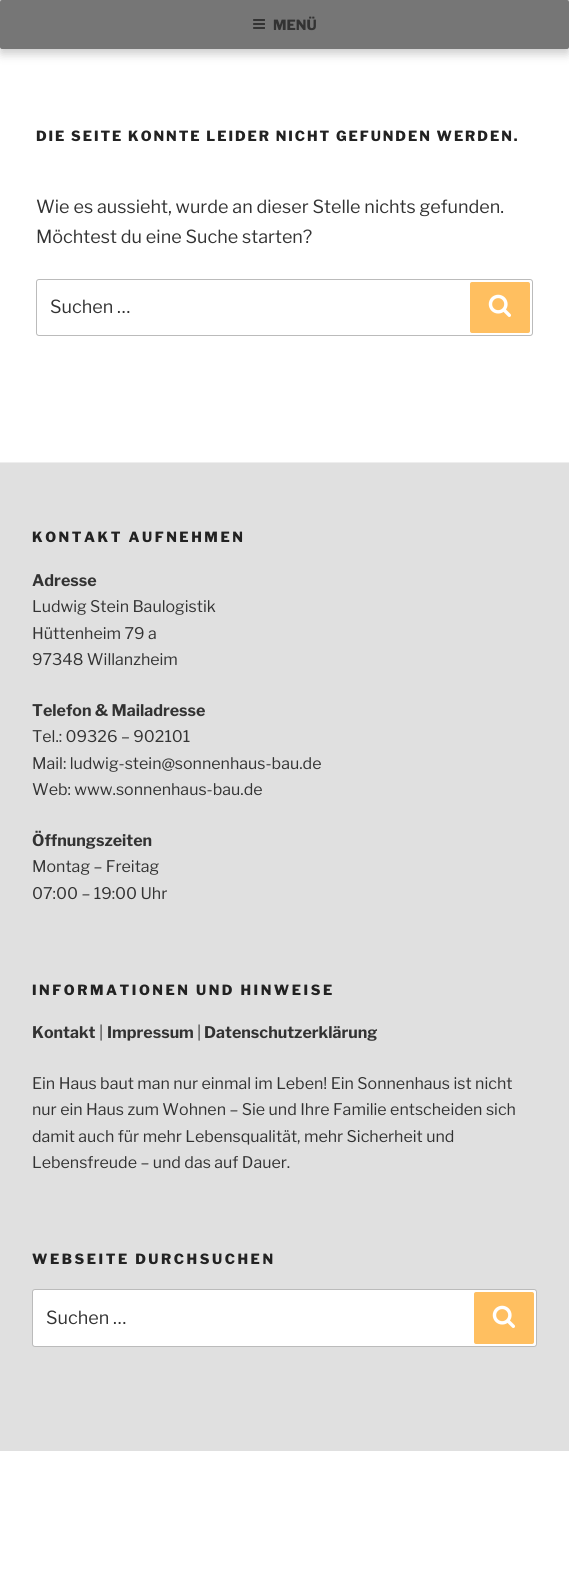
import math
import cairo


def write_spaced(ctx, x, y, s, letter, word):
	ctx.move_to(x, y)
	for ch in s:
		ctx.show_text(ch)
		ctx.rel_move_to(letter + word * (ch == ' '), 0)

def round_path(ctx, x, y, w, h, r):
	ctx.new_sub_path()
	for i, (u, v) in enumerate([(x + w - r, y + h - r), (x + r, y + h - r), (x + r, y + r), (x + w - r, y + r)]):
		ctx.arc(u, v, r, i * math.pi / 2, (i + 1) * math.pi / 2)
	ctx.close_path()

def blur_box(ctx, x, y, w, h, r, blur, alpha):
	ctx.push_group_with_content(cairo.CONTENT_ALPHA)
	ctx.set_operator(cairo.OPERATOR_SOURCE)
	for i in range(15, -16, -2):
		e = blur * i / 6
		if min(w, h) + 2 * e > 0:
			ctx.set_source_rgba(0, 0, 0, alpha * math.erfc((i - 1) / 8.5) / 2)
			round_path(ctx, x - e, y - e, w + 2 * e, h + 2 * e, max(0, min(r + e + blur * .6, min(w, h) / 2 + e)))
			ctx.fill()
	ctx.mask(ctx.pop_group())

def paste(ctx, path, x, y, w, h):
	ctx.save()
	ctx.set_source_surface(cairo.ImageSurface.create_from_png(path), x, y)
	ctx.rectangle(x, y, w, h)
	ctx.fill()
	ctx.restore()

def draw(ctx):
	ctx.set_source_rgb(1, 1, 1)
	ctx.paint()
	ctx.set_source_rgb(0.843, 0.843, 0.843)
	ctx.rectangle(0, 0, 569, 1)
	ctx.fill()
	ctx.set_source_rgb(0, 0, 0)
	blur_box(ctx, 0, 5, 569, 49, 2, 5, 0.2)
	ctx.set_source_rgb(0.463, 0.463, 0.463)
	round_path(ctx, 0, 0, 569, 49, 2)
	ctx.fill()
	paste(ctx, 'media/1.png', 253, 19, 12, 10)
	ctx.select_font_face('Libre Franklin Thin')
	ctx.set_font_size(14)
	ctx.set_source_rgb(0.2, 0.2, 0.2)
	ctx.move_to(273, 30)
	ctx.show_text('MENÜ')
	ctx.set_source_rgb(0.133, 0.133, 0.133)
	write_spaced(ctx, 36, 141, 'DIE SEITE KONNTE LEIDER NICHT GEFUNDEN WERDEN.', 1.95, 0)
	ctx.select_font_face('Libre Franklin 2 Thin')
	ctx.set_font_size(18)
	ctx.set_source_rgb(0.2, 0.2, 0.2)
	ctx.move_to(36, 213)
	ctx.show_text('Wie es aussieht, wurde an dieser Stelle nichts gefunden.')
	ctx.move_to(36, 243)
	ctx.show_text('Möchtest du eine Suche starten?')
	round_path(ctx, 36.5, 279.5, 496, 56, 2.5)
	ctx.set_source_rgb(0.733, 0.733, 0.733)
	ctx.set_line_width(1)
	ctx.stroke()
	ctx.set_source_rgb(0.2, 0.2, 0.2)
	ctx.move_to(50, 313)
	ctx.show_text('Suchen …')
	ctx.set_source_rgb(1, 0.749, 0.376)
	round_path(ctx, 470, 282, 60, 51, 2)
	ctx.fill()
	paste(ctx, 'media/2.png', 488, 294, 23, 23)
	ctx.set_source_rgb(0.878, 0.878, 0.878)
	ctx.rectangle(0, 463, 569, 988)
	ctx.fill()
	ctx.set_source_rgb(0.933, 0.933, 0.933)
	ctx.rectangle(0, 462, 569, 1)
	ctx.fill()
	ctx.select_font_face('Libre Franklin Thin')
	ctx.set_font_size(14)
	ctx.set_source_rgb(0.133, 0.133, 0.133)
	write_spaced(ctx, 32, 542, 'KONTAKT AUFNEHMEN', 2.55, 0)
	ctx.select_font_face('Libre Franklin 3 Thin')
	ctx.set_font_size(16)
	ctx.set_source_rgb(0.2, 0.2, 0.2)
	ctx.move_to(32, 586)
	ctx.show_text('Adresse')
	ctx.select_font_face('Libre Franklin 2 Thin')
	for x, y, s in [
		(32, 612, 'Ludwig Stein Baulogistik'),
		(32, 639, 'Hüttenheim 79 a'),
		(32, 665, '97348 Willanzheim'),
	]:
		ctx.move_to(x, y)
		ctx.show_text(s)
	ctx.select_font_face('Libre Franklin 3 Thin')
	ctx.move_to(32, 716)
	ctx.show_text('Telefon & Mailadresse')
	ctx.select_font_face('Libre Franklin 2 Thin')
	for x, y, s in [
		(32, 742, 'Tel.: 09326 – 902101'),
		(32, 769, 'Mail: ludwig-stein@sonnenhaus-bau.de'),
		(32, 795, 'Web: www.sonnenhaus-bau.de'),
	]:
		ctx.move_to(x, y)
		ctx.show_text(s)
	ctx.select_font_face('Libre Franklin 3 Thin')
	ctx.move_to(32, 846)
	ctx.show_text('Öffnungszeiten')
	ctx.select_font_face('Libre Franklin 2 Thin')
	ctx.move_to(32, 872)
	ctx.show_text('Montag – Freitag')
	ctx.move_to(32, 899)
	ctx.show_text('07:00 – 19:00 Uhr')
	ctx.select_font_face('Libre Franklin Thin')
	ctx.set_font_size(14)
	ctx.set_source_rgb(0.133, 0.133, 0.133)
	write_spaced(ctx, 32, 995, 'INFORMATIONEN UND HINWEISE', 2.55, 0)
	ctx.select_font_face('Libre Franklin 3 Thin')
	ctx.set_font_size(16)
	ctx.set_source_rgb(0.2, 0.2, 0.2)
	ctx.move_to(32, 1038)
	ctx.show_text('Kontakt')
	ctx.select_font_face('Libre Franklin 2 Thin')
	ctx.move_to(99, 1038)
	ctx.show_text('|')
	ctx.select_font_face('Libre Franklin 3 Thin')
	ctx.move_to(107, 1038)
	ctx.show_text('Impressum')
	ctx.select_font_face('Libre Franklin 2 Thin')
	ctx.move_to(197, 1038)
	ctx.show_text('|')
	ctx.select_font_face('Libre Franklin 3 Thin')
	ctx.move_to(204, 1038)
	ctx.show_text('Datenschutzerklärung')
	ctx.select_font_face('Libre Franklin 2 Thin')
	for x, y, s in [
		(32, 1089, 'Ein Haus baut man nur einmal im Leben! Ein Sonnenhaus ist nicht'),
		(32, 1115, 'nur ein Haus zum Wohnen – Sie und Ihre Familie entscheiden sich'),
		(32, 1142, 'damit auch für mehr Lebensqualität, mehr Sicherheit und'),
		(32, 1168, 'Lebensfreude – und das auf Dauer.'),
	]:
		ctx.move_to(x, y)
		ctx.show_text(s)
	ctx.select_font_face('Libre Franklin Thin')
	ctx.set_font_size(14)
	ctx.set_source_rgb(0.133, 0.133, 0.133)
	write_spaced(ctx, 32, 1264, 'WEBSEITE DURCHSUCHEN', 2.55, 0)
	ctx.set_source_rgb(1, 1, 1)
	round_path(ctx, 32.5, 1289.5, 504, 57, 2.5)
	ctx.fill_preserve()
	ctx.set_source_rgb(0.733, 0.733, 0.733)
	ctx.stroke()
	ctx.select_font_face('Libre Franklin 2 Thin')
	ctx.set_font_size(18)
	ctx.set_source_rgb(0.2, 0.2, 0.2)
	ctx.move_to(46, 1324)
	ctx.show_text('Suchen …')
	ctx.set_source_rgb(1, 0.749, 0.376)
	round_path(ctx, 474, 1292, 60, 52, 2)
	ctx.fill()
	paste(ctx, 'media/2.png', 492, 1305, 23, 23)


surface = cairo.ImageSurface(cairo.FORMAT_RGB24, 569, 1590)
ctx = cairo.Context(surface)
options = cairo.FontOptions()
options.set_hint_metrics(cairo.HINT_METRICS_OFF)
options.set_hint_style(cairo.HINT_STYLE_NONE)
ctx.set_font_options(options)
ctx.set_miter_limit(4)
draw(ctx)
surface.write_to_png('image.png')
